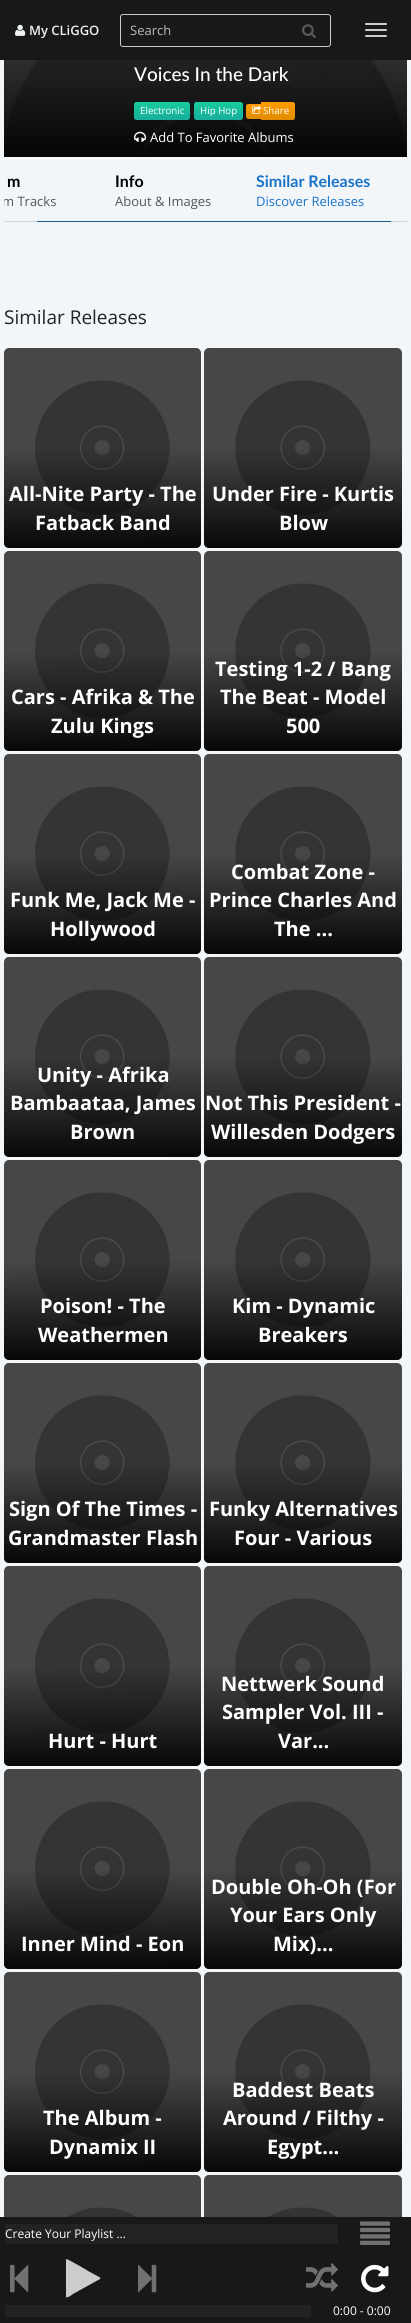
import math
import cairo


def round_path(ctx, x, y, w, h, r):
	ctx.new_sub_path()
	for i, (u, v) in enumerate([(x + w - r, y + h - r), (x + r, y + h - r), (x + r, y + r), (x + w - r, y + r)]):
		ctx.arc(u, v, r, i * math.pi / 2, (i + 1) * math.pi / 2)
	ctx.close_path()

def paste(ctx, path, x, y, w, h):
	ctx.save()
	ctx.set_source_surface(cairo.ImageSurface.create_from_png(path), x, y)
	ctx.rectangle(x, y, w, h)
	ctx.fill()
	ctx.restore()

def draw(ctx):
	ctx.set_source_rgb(0.953, 0.961, 0.976)
	ctx.paint()
	ctx.set_source_rgb(0.094, 0.094, 0.094)
	ctx.rectangle(0, 0, 411, 60)
	ctx.fill()
	paste(ctx, 'media/1.png', 15, 24, 11, 12)
	ctx.select_font_face('Open Sans SemiBold')
	ctx.set_font_size(13)
	ctx.set_source_rgb(0.925, 0.941, 0.945)
	ctx.move_to(29, 35)
	ctx.show_text('My CLiGGO')
	round_path(ctx, 120.5, 14.5, 210, 32, 2.5)
	ctx.set_source_rgb(0.8, 0.8, 0.8)
	ctx.set_line_width(1)
	ctx.stroke()
	ctx.select_font_face('Open Sans')
	ctx.set_source_rgb(0.706, 0.737, 0.761)
	ctx.move_to(130, 35)
	ctx.show_text('Search')
	paste(ctx, 'media/2.png', 302, 24, 14, 14)
	ctx.set_source_rgb(0.8, 0.8, 0.8)
	round_path(ctx, 365, 23, 22, 2, 1)
	ctx.fill()
	round_path(ctx, 365, 29, 22, 2, 1)
	ctx.fill()
	round_path(ctx, 365, 35, 22, 2, 1)
	ctx.fill()
	paste(ctx, 'media/3.png', 4, 60, 403, 97)
	ctx.select_font_face('Lato Medium')
	ctx.set_font_size(19)
	ctx.set_source_rgb(1, 1, 1)
	ctx.move_to(134, 81)
	ctx.show_text('Voices In the Dark')
	gradient = cairo.LinearGradient(162, 102, 162, 120)
	gradient.add_color_stop_rgba(0, 0.094, 0.8, 0.612, 1)
	gradient.add_color_stop_rgba(1, 0.094, 0.675, 0.612, 1)
	ctx.set_source(gradient)
	round_path(ctx, 134, 102, 56, 18, 2.5)
	ctx.fill()
	ctx.select_font_face('Open Sans')
	ctx.set_font_size(9.75)
	ctx.set_source_rgb(1, 1, 1)
	ctx.move_to(140, 114)
	ctx.show_text('Electronic')
	gradient = cairo.LinearGradient(219, 102, 219, 120)
	gradient.add_color_stop_rgba(0, 0.094, 0.8, 0.612, 1)
	gradient.add_color_stop_rgba(1, 0.094, 0.675, 0.612, 1)
	ctx.set_source(gradient)
	round_path(ctx, 194, 102, 49, 18, 2.5)
	ctx.fill()
	ctx.set_source_rgb(1, 1, 1)
	ctx.move_to(200, 114)
	ctx.show_text('Hip Hop')
	gradient = cairo.LinearGradient(254, 104, 254, 119)
	gradient.add_color_stop_rgba(0, 1, 0.616, 0, 1)
	gradient.add_color_stop_rgba(1, 0.878, 0.541, 0, 1)
	ctx.set_source(gradient)
	ctx.new_path()
	ctx.move_to(248.5, 104)
	ctx.line_to(261, 104)
	ctx.line_to(261, 119)
	ctx.line_to(248.5, 119)
	ctx.curve_to(247, 119, 246, 118, 246, 116.5)
	ctx.line_to(246, 106.5)
	ctx.curve_to(246, 105, 247, 104, 248.5, 104)
	ctx.close_path()
	ctx.fill()
	gradient = cairo.LinearGradient(278, 102, 278, 120)
	gradient.add_color_stop_rgba(0, 1, 0.616, 0, 1)
	gradient.add_color_stop_rgba(1, 0.878, 0.541, 0, 1)
	ctx.set_source(gradient)
	ctx.new_path()
	ctx.move_to(261, 102)
	ctx.line_to(292.5, 102)
	ctx.curve_to(294, 102, 295, 103, 295, 104.5)
	ctx.line_to(295, 117.5)
	ctx.curve_to(295, 119, 294, 120, 292.5, 120)
	ctx.line_to(261, 120)
	ctx.close_path()
	ctx.fill()
	paste(ctx, 'media/4.png', 252, 105, 9, 9)
	ctx.set_source_rgb(1, 1, 1)
	ctx.move_to(263, 114)
	ctx.show_text('Share')
	paste(ctx, 'media/5.png', 134, 131, 13, 11)
	ctx.set_font_size(13)
	ctx.move_to(150, 142)
	ctx.show_text('Add To Favorite Albums')
	ctx.select_font_face('Lato', cairo.FONT_SLANT_NORMAL, cairo.FONT_WEIGHT_BOLD)
	ctx.set_font_size(16)
	ctx.set_source_rgb(0, 0, 0)
	ctx.move_to(7, 187)
	ctx.show_text('m')
	ctx.save()
	ctx.rectangle(4, 170, 403, 52)
	ctx.clip()
	ctx.select_font_face('Open Sans')
	ctx.set_font_size(13)
	ctx.set_source_rgb(0.333, 0.333, 0.333)
	ctx.move_to(2, 206)
	ctx.show_text('m Tracks')
	ctx.restore()
	ctx.move_to(115, 187)
	ctx.show_text('Info')
	ctx.select_font_face('Open Sans')
	ctx.set_font_size(13)
	ctx.set_source_rgb(0.333, 0.333, 0.333)
	ctx.move_to(115, 206)
	ctx.show_text('About & Images')
	ctx.select_font_face('Lato', cairo.FONT_SLANT_NORMAL, cairo.FONT_WEIGHT_BOLD)
	ctx.set_font_size(16)
	ctx.set_source_rgb(0.094, 0.451, 0.788)
	ctx.move_to(256, 187)
	ctx.show_text('Similar Releases')
	ctx.select_font_face('Open Sans')
	ctx.set_font_size(13)
	ctx.move_to(256, 206)
	ctx.show_text('Discover Releases')
	ctx.set_source_rgb(0.808, 0.843, 0.859)
	ctx.rectangle(4, 221, 403, 1)
	ctx.fill()
	ctx.set_source_rgb(0.125, 0.376, 0.557)
	ctx.rectangle(37, 221, 354, 1)
	ctx.fill()
	ctx.set_font_size(19)
	ctx.set_source_rgb(0.133, 0.133, 0.133)
	ctx.move_to(4, 324)
	ctx.show_text('Similar Releases')
	paste(ctx, 'media/6.png', 4, 348, 197, 200)
	gradient = cairo.LinearGradient(102, 348, 103, 548)
	gradient.add_color_stop_rgba(0, 0, 0, 0, 0)
	gradient.add_color_stop_rgba(0.5, 0, 0, 0, 0)
	gradient.add_color_stop_rgba(1, 0, 0, 0, 0.9)
	ctx.set_source(gradient)
	round_path(ctx, 4, 348, 197, 200, 5)
	ctx.fill()
	ctx.select_font_face('Open Sans', cairo.FONT_SLANT_NORMAL, cairo.FONT_WEIGHT_BOLD)
	ctx.set_font_size(20)
	ctx.set_source_rgb(1, 1, 1)
	ctx.move_to(9, 501)
	ctx.show_text('All-Nite Party - The')
	ctx.move_to(35, 530)
	ctx.show_text('Fatback Band')
	paste(ctx, 'media/7.png', 204, 348, 198, 200)
	gradient = cairo.LinearGradient(303, 348, 303, 548)
	gradient.add_color_stop_rgba(0, 0, 0, 0, 0)
	gradient.add_color_stop_rgba(0.5, 0, 0, 0, 0)
	gradient.add_color_stop_rgba(1, 0, 0, 0, 0.9)
	ctx.set_source(gradient)
	round_path(ctx, 204, 348, 198, 200, 5)
	ctx.fill()
	ctx.set_source_rgb(1, 1, 1)
	ctx.move_to(212, 501)
	ctx.show_text('Under Fire - Kurtis')
	ctx.move_to(279, 530)
	ctx.show_text('Blow')
	paste(ctx, 'media/6.png', 4, 551, 197, 200)
	gradient = cairo.LinearGradient(102, 551, 103, 751)
	gradient.add_color_stop_rgba(0, 0, 0, 0, 0)
	gradient.add_color_stop_rgba(0.5, 0, 0, 0, 0)
	gradient.add_color_stop_rgba(1, 0, 0, 0, 0.9)
	ctx.set_source(gradient)
	round_path(ctx, 4, 551, 197, 200, 5)
	ctx.fill()
	ctx.set_source_rgb(1, 1, 1)
	ctx.move_to(11, 704)
	ctx.show_text('Cars - Afrika & The')
	ctx.move_to(51, 733)
	ctx.show_text('Zulu Kings')
	paste(ctx, 'media/7.png', 204, 551, 198, 200)
	gradient = cairo.LinearGradient(303, 551, 303, 751)
	gradient.add_color_stop_rgba(0, 0, 0, 0, 0)
	gradient.add_color_stop_rgba(0.5, 0, 0, 0, 0)
	gradient.add_color_stop_rgba(1, 0, 0, 0, 0.9)
	ctx.set_source(gradient)
	round_path(ctx, 204, 551, 198, 200, 5)
	ctx.fill()
	ctx.set_source_rgb(1, 1, 1)
	for x, y, s in [
		(215, 676, 'Testing 1-2 / Bang'),
		(220, 704, 'The Beat - Model'),
		(286, 733, '500'),
	]:
		ctx.move_to(x, y)
		ctx.show_text(s)
	paste(ctx, 'media/6.png', 4, 754, 197, 200)
	gradient = cairo.LinearGradient(102, 754, 103, 954)
	gradient.add_color_stop_rgba(0, 0, 0, 0, 0)
	gradient.add_color_stop_rgba(0.5, 0, 0, 0, 0)
	gradient.add_color_stop_rgba(1, 0, 0, 0, 0.9)
	ctx.set_source(gradient)
	round_path(ctx, 4, 754, 197, 200, 5)
	ctx.fill()
	ctx.set_source_rgb(1, 1, 1)
	ctx.move_to(10, 907)
	ctx.show_text('Funk Me, Jack Me -')
	ctx.move_to(50, 936)
	ctx.show_text('Hollywood')
	paste(ctx, 'media/7.png', 204, 754, 198, 200)
	gradient = cairo.LinearGradient(303, 754, 303, 954)
	gradient.add_color_stop_rgba(0, 0, 0, 0, 0)
	gradient.add_color_stop_rgba(0.5, 0, 0, 0, 0)
	gradient.add_color_stop_rgba(1, 0, 0, 0, 0.9)
	ctx.set_source(gradient)
	round_path(ctx, 204, 754, 198, 200, 5)
	ctx.fill()
	ctx.set_source_rgb(1, 1, 1)
	for x, y, s in [
		(231, 879, 'Combat Zone -'),
		(209, 907, 'Prince Charles And'),
		(274, 936, 'The ...'),
	]:
		ctx.move_to(x, y)
		ctx.show_text(s)
	paste(ctx, 'media/8.png', 4, 957, 197, 200)
	gradient = cairo.LinearGradient(102, 957, 103, 1157)
	gradient.add_color_stop_rgba(0, 0, 0, 0, 0)
	gradient.add_color_stop_rgba(0.5, 0, 0, 0, 0)
	gradient.add_color_stop_rgba(1, 0, 0, 0, 0.9)
	ctx.set_source(gradient)
	round_path(ctx, 4, 957, 197, 200, 5)
	ctx.fill()
	ctx.set_source_rgb(1, 1, 1)
	for x, y, s in [
		(37, 1082, 'Unity - Afrika'),
		(10, 1110, 'Bambaataa, James'),
		(70, 1139, 'Brown'),
	]:
		ctx.move_to(x, y)
		ctx.show_text(s)
	paste(ctx, 'media/7.png', 204, 957, 198, 200)
	gradient = cairo.LinearGradient(303, 957, 303, 1157)
	gradient.add_color_stop_rgba(0, 0, 0, 0, 0)
	gradient.add_color_stop_rgba(0.5, 0, 0, 0, 0)
	gradient.add_color_stop_rgba(1, 0, 0, 0, 0.9)
	ctx.set_source(gradient)
	round_path(ctx, 204, 957, 198, 200, 5)
	ctx.fill()
	ctx.set_source_rgb(1, 1, 1)
	ctx.move_to(205, 1110)
	ctx.show_text('Not This President -')
	ctx.move_to(211, 1139)
	ctx.show_text('Willesden Dodgers')
	paste(ctx, 'media/6.png', 4, 1160, 197, 200)
	gradient = cairo.LinearGradient(102, 1160, 103, 1360)
	gradient.add_color_stop_rgba(0, 0, 0, 0, 0)
	gradient.add_color_stop_rgba(0.5, 0, 0, 0, 0)
	gradient.add_color_stop_rgba(1, 0, 0, 0, 0.9)
	ctx.set_source(gradient)
	round_path(ctx, 4, 1160, 197, 200, 5)
	ctx.fill()
	ctx.set_source_rgb(1, 1, 1)
	ctx.move_to(40, 1313)
	ctx.show_text('Poison! - The')
	ctx.move_to(38, 1342)
	ctx.show_text('Weathermen')
	paste(ctx, 'media/7.png', 204, 1160, 198, 200)
	gradient = cairo.LinearGradient(303, 1160, 303, 1360)
	gradient.add_color_stop_rgba(0, 0, 0, 0, 0)
	gradient.add_color_stop_rgba(0.5, 0, 0, 0, 0)
	gradient.add_color_stop_rgba(1, 0, 0, 0, 0.9)
	ctx.set_source(gradient)
	round_path(ctx, 204, 1160, 198, 200, 5)
	ctx.fill()
	ctx.set_source_rgb(1, 1, 1)
	ctx.move_to(232, 1313)
	ctx.show_text('Kim - Dynamic')
	ctx.move_to(258, 1342)
	ctx.show_text('Breakers')
	paste(ctx, 'media/6.png', 4, 1363, 197, 200)
	gradient = cairo.LinearGradient(102, 1363, 103, 1563)
	gradient.add_color_stop_rgba(0, 0, 0, 0, 0)
	gradient.add_color_stop_rgba(0.5, 0, 0, 0, 0)
	gradient.add_color_stop_rgba(1, 0, 0, 0, 0.9)
	ctx.set_source(gradient)
	round_path(ctx, 4, 1363, 197, 200, 5)
	ctx.fill()
	ctx.set_source_rgb(1, 1, 1)
	ctx.move_to(9, 1516)
	ctx.show_text('Sign Of The Times -')
	ctx.move_to(8, 1545)
	ctx.show_text('Grandmaster Flash')
	paste(ctx, 'media/7.png', 204, 1363, 198, 200)
	gradient = cairo.LinearGradient(303, 1363, 303, 1563)
	gradient.add_color_stop_rgba(0, 0, 0, 0, 0)
	gradient.add_color_stop_rgba(0.5, 0, 0, 0, 0)
	gradient.add_color_stop_rgba(1, 0, 0, 0, 0.9)
	ctx.set_source(gradient)
	round_path(ctx, 204, 1363, 198, 200, 5)
	ctx.fill()
	ctx.set_source_rgb(1, 1, 1)
	ctx.move_to(209, 1516)
	ctx.show_text('Funky Alternatives')
	ctx.move_to(234, 1545)
	ctx.show_text('Four - Various')
	paste(ctx, 'media/6.png', 4, 1566, 197, 200)
	gradient = cairo.LinearGradient(102, 1566, 103, 1766)
	gradient.add_color_stop_rgba(0, 0, 0, 0, 0)
	gradient.add_color_stop_rgba(0.5, 0, 0, 0, 0)
	gradient.add_color_stop_rgba(1, 0, 0, 0, 0.9)
	ctx.set_source(gradient)
	round_path(ctx, 4, 1566, 197, 200, 5)
	ctx.fill()
	ctx.set_source_rgb(1, 1, 1)
	ctx.move_to(48, 1748)
	ctx.show_text('Hurt - Hurt')
	paste(ctx, 'media/7.png', 204, 1566, 198, 200)
	gradient = cairo.LinearGradient(303, 1566, 303, 1766)
	gradient.add_color_stop_rgba(0, 0, 0, 0, 0)
	gradient.add_color_stop_rgba(0.5, 0, 0, 0, 0)
	gradient.add_color_stop_rgba(1, 0, 0, 0, 0.9)
	ctx.set_source(gradient)
	round_path(ctx, 204, 1566, 198, 200, 5)
	ctx.fill()
	ctx.set_source_rgb(1, 1, 1)
	for x, y, s in [
		(221, 1691, 'Nettwerk Sound'),
		(222, 1719, 'Sampler Vol. III -'),
		(278, 1748, 'Var...'),
	]:
		ctx.move_to(x, y)
		ctx.show_text(s)
	paste(ctx, 'media/6.png', 4, 1769, 197, 200)
	gradient = cairo.LinearGradient(102, 1769, 103, 1969)
	gradient.add_color_stop_rgba(0, 0, 0, 0, 0)
	gradient.add_color_stop_rgba(0.5, 0, 0, 0, 0)
	gradient.add_color_stop_rgba(1, 0, 0, 0, 0.9)
	ctx.set_source(gradient)
	round_path(ctx, 4, 1769, 197, 200, 5)
	ctx.fill()
	ctx.set_source_rgb(1, 1, 1)
	ctx.move_to(21, 1951)
	ctx.show_text('Inner Mind - Eon')
	paste(ctx, 'media/7.png', 204, 1769, 198, 200)
	gradient = cairo.LinearGradient(303, 1769, 303, 1969)
	gradient.add_color_stop_rgba(0, 0, 0, 0, 0)
	gradient.add_color_stop_rgba(0.5, 0, 0, 0, 0)
	gradient.add_color_stop_rgba(1, 0, 0, 0, 0.9)
	ctx.set_source(gradient)
	round_path(ctx, 204, 1769, 198, 200, 5)
	ctx.fill()
	ctx.set_source_rgb(1, 1, 1)
	for x, y, s in [
		(211, 1894, 'Double Oh-Oh (For'),
		(230, 1922, 'Your Ears Only'),
		(273, 1951, 'Mix)...'),
	]:
		ctx.move_to(x, y)
		ctx.show_text(s)
	paste(ctx, 'media/8.png', 4, 1972, 197, 200)
	gradient = cairo.LinearGradient(102, 1972, 103, 2172)
	gradient.add_color_stop_rgba(0, 0, 0, 0, 0)
	gradient.add_color_stop_rgba(0.5, 0, 0, 0, 0)
	gradient.add_color_stop_rgba(1, 0, 0, 0, 0.9)
	ctx.set_source(gradient)
	round_path(ctx, 4, 1972, 197, 200, 5)
	ctx.fill()
	ctx.set_source_rgb(1, 1, 1)
	ctx.move_to(43, 2125)
	ctx.show_text('The Album -')
	ctx.move_to(49, 2154)
	ctx.show_text('Dynamix II')
	paste(ctx, 'media/7.png', 204, 1972, 198, 200)
	gradient = cairo.LinearGradient(303, 1972, 303, 2172)
	gradient.add_color_stop_rgba(0, 0, 0, 0, 0)
	gradient.add_color_stop_rgba(0.5, 0, 0, 0, 0)
	gradient.add_color_stop_rgba(1, 0, 0, 0, 0.9)
	ctx.set_source(gradient)
	round_path(ctx, 204, 1972, 198, 200, 5)
	ctx.fill()
	ctx.set_source_rgb(1, 1, 1)
	for x, y, s in [
		(232, 2097, 'Baddest Beats'),
		(223, 2125, 'Around / Filthy -'),
		(267, 2154, 'Egypt...'),
	]:
		ctx.move_to(x, y)
		ctx.show_text(s)
	paste(ctx, 'media/9.png', 4, 2175, 197, 42)
	paste(ctx, 'media/10.png', 204, 2175, 198, 42)
	ctx.set_source_rgb(0.094, 0.094, 0.094)
	ctx.rectangle(0, 2217, 411, 106)
	ctx.fill()
	ctx.set_source_rgb(0.133, 0.133, 0.133)
	ctx.rectangle(5, 2224, 333, 20)
	ctx.fill()
	ctx.select_font_face('Open Sans')
	ctx.set_font_size(12)
	ctx.set_source_rgb(1, 1, 1)
	ctx.move_to(5, 2238)
	ctx.show_text('Create Your Playlist ...')
	paste(ctx, 'media/11.png', 360, 2221, 30, 24)
	paste(ctx, 'media/12.png', 10, 2264, 19, 29)
	ctx.set_source_rgb(0.8, 0.8, 0.8)
	ctx.new_path()
	ctx.move_to(100, 2279)
	ctx.line_to(73, 2294)
	ctx.curve_to(72.5, 2294.5, 67, 2298.5, 66, 2297)
	ctx.line_to(66, 2260)
	ctx.line_to(66.5, 2259)
	ctx.curve_to(67.5, 2259, 87, 2270, 89, 2271.5)
	ctx.line_to(100, 2277.5)
	ctx.line_to(100.5, 2278)
	ctx.close_path()
	ctx.fill()
	paste(ctx, 'media/13.png', 138, 2264, 19, 29)
	paste(ctx, 'media/14.png', 306, 2263, 32, 29)
	paste(ctx, 'media/15.png', 361, 2264, 28, 29)
	ctx.set_source_rgb(0.133, 0.133, 0.133)
	ctx.rectangle(5, 2305, 306, 12)
	ctx.fill()
	ctx.set_source_rgb(1, 1, 1)
	ctx.move_to(333, 2315)
	ctx.show_text('0:00 - 0:00')


surface = cairo.ImageSurface(cairo.FORMAT_RGB24, 411, 2323)
ctx = cairo.Context(surface)
options = cairo.FontOptions()
options.set_hint_metrics(cairo.HINT_METRICS_OFF)
options.set_hint_style(cairo.HINT_STYLE_NONE)
ctx.set_font_options(options)
ctx.set_miter_limit(4)
draw(ctx)
surface.write_to_png('image.png')
